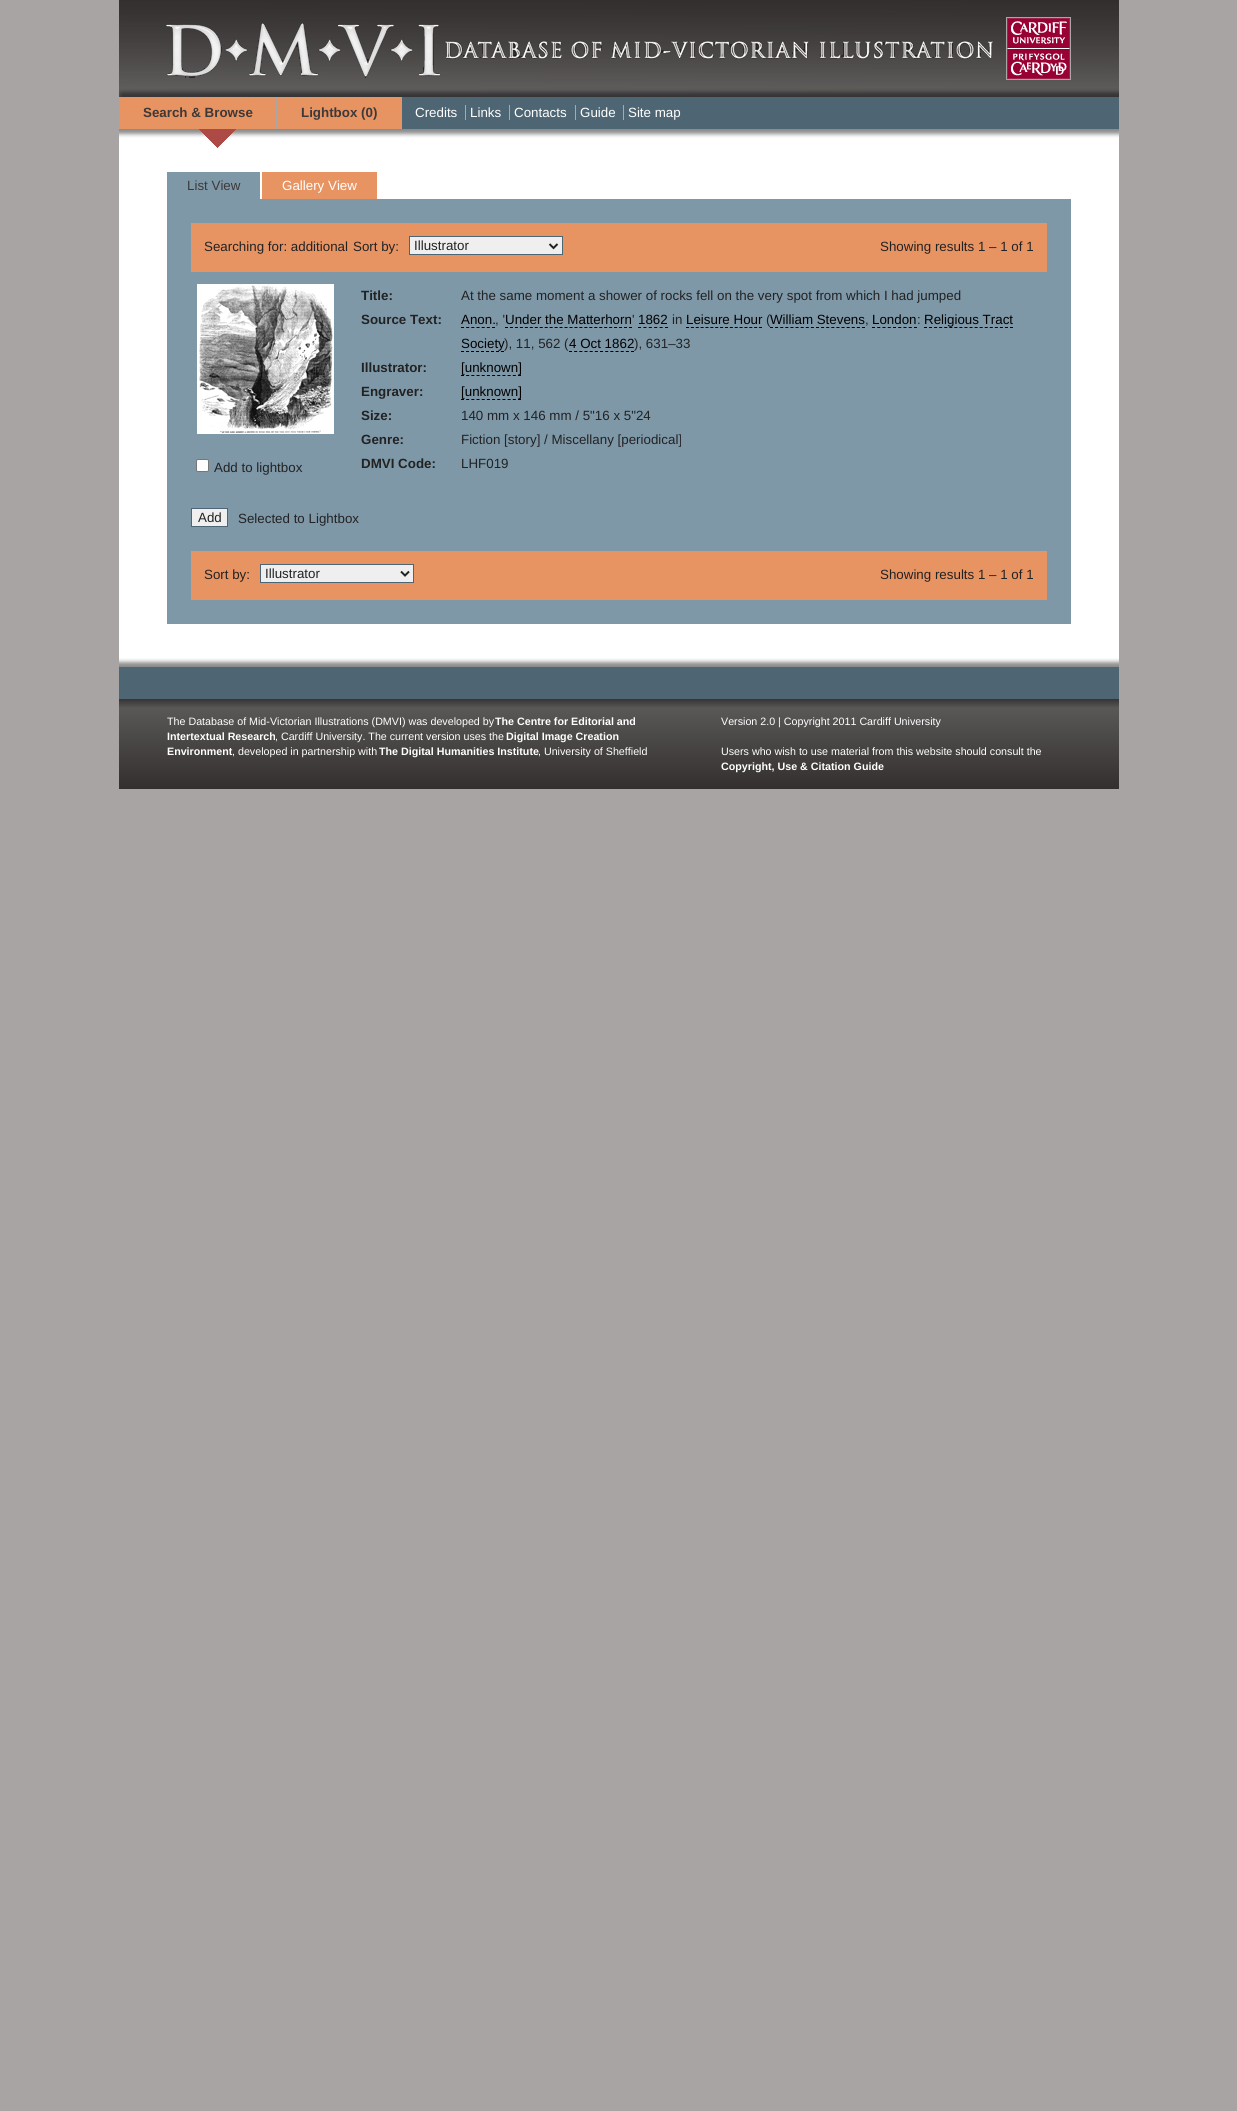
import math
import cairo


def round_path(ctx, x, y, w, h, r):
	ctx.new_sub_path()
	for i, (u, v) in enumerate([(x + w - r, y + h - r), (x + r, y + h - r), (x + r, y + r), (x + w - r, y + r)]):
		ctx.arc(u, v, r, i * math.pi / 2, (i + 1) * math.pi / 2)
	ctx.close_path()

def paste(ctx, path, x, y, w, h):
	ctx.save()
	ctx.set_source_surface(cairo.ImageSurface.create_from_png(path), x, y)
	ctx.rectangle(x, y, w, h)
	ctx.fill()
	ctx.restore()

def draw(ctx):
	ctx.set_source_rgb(0.659, 0.643, 0.639)
	ctx.paint()
	ctx.set_source_rgb(1, 1, 1)
	ctx.rectangle(119, 138, 1000, 520)
	ctx.fill()
	paste(ctx, 'media/1.png', 119, 0, 1000, 97)
	ctx.set_source_rgb(0.306, 0.396, 0.451)
	ctx.rectangle(402, 97, 717, 32)
	ctx.fill()
	ctx.set_source_rgb(0.91, 0.576, 0.384)
	ctx.rectangle(119, 97, 157, 32)
	ctx.fill()
	ctx.set_source_rgb(0.659, 0.651, 0.651)
	ctx.rectangle(276, 97, 1, 32)
	ctx.fill()
	ctx.select_font_face('Liberation Sans', cairo.FONT_SLANT_NORMAL, cairo.FONT_WEIGHT_BOLD)
	ctx.set_font_size(13.35)
	ctx.set_source_rgb(0.239, 0.224, 0.224)
	ctx.move_to(143, 117)
	ctx.show_text('Search & Browse')
	ctx.set_source_rgb(0.91, 0.576, 0.384)
	ctx.rectangle(277, 97, 124, 32)
	ctx.fill()
	ctx.set_source_rgb(0.659, 0.651, 0.651)
	ctx.rectangle(401, 97, 1, 32)
	ctx.fill()
	ctx.set_source_rgb(0.239, 0.224, 0.224)
	ctx.move_to(301, 117)
	ctx.show_text('Lightbox (0)')
	ctx.select_font_face('Liberation Sans')
	ctx.set_source_rgb(1, 1, 1)
	ctx.move_to(415, 117)
	ctx.show_text('Credits')
	ctx.move_to(470, 117)
	ctx.show_text('Links')
	ctx.set_source_rgb(0.663, 0.663, 0.663)
	ctx.rectangle(465, 105, 1, 15)
	ctx.fill()
	ctx.set_source_rgb(1, 1, 1)
	ctx.move_to(514, 117)
	ctx.show_text('Contacts')
	ctx.set_source_rgb(0.663, 0.663, 0.663)
	ctx.rectangle(509, 105, 1, 15)
	ctx.fill()
	ctx.set_source_rgb(1, 1, 1)
	ctx.move_to(580, 117)
	ctx.show_text('Guide')
	ctx.set_source_rgb(0.663, 0.663, 0.663)
	ctx.rectangle(575, 105, 1, 15)
	ctx.fill()
	ctx.set_source_rgb(1, 1, 1)
	ctx.move_to(628, 117)
	ctx.show_text('Site map')
	ctx.set_source_rgb(0.663, 0.663, 0.663)
	ctx.rectangle(623, 105, 1, 15)
	ctx.fill()
	paste(ctx, 'media/2.png', 119, 129, 1000, 9)
	paste(ctx, 'media/3.png', 199, 129, 37, 19)
	ctx.set_source_rgb(0.494, 0.596, 0.659)
	ctx.rectangle(167, 172, 93, 27)
	ctx.fill()
	ctx.set_source_rgb(0.239, 0.224, 0.224)
	ctx.move_to(187, 190)
	ctx.show_text('List View')
	ctx.set_source_rgb(0.91, 0.576, 0.384)
	ctx.rectangle(262, 172, 115, 27)
	ctx.fill()
	ctx.set_source_rgb(1, 1, 1)
	ctx.move_to(282, 190)
	ctx.show_text('Gallery View')
	ctx.set_source_rgb(0.494, 0.596, 0.659)
	ctx.rectangle(167, 199, 904, 425)
	ctx.fill()
	ctx.set_source_rgb(0.91, 0.576, 0.384)
	ctx.rectangle(191, 223, 856, 49)
	ctx.fill()
	ctx.set_source_rgb(0.133, 0.133, 0.133)
	ctx.move_to(204, 251)
	ctx.show_text('Searching for: additional')
	ctx.move_to(353, 251)
	ctx.show_text('Sort by:')
	ctx.set_source_rgb(0.937, 0.937, 0.937)
	ctx.rectangle(409.5, 236.5, 153, 18)
	ctx.fill_preserve()
	ctx.set_source_rgb(0.306, 0.396, 0.451)
	ctx.set_line_width(1)
	ctx.stroke()
	ctx.new_path()
	ctx.move_to(549.5, 244)
	ctx.line_to(553.5, 248)
	ctx.line_to(557.5, 244)
	ctx.set_source_rgb(0.133, 0.133, 0.133)
	ctx.set_line_width(2)
	ctx.stroke()
	ctx.move_to(414, 250)
	ctx.show_text('Illustrator')
	ctx.move_to(880, 251)
	ctx.show_text('Showing results 1 – 1 of 1')
	paste(ctx, 'media/4.png', 197, 284, 137, 150)
	ctx.set_source_rgb(1, 1, 1)
	round_path(ctx, 196.5, 459.5, 12, 12, 1.5)
	ctx.fill_preserve()
	ctx.set_source_rgb(0.463, 0.463, 0.463)
	ctx.set_line_width(1)
	ctx.stroke()
	ctx.set_source_rgb(0.133, 0.133, 0.133)
	ctx.move_to(214, 472)
	ctx.show_text('Add to lightbox')
	ctx.select_font_face('Liberation Sans', cairo.FONT_SLANT_NORMAL, cairo.FONT_WEIGHT_BOLD)
	ctx.move_to(361, 300)
	ctx.show_text('Title:')
	ctx.select_font_face('Liberation Sans')
	ctx.move_to(461, 300)
	ctx.show_text('At the same moment a shower of rocks fell on the very spot from which I had jumped')
	ctx.select_font_face('Liberation Sans', cairo.FONT_SLANT_NORMAL, cairo.FONT_WEIGHT_BOLD)
	ctx.move_to(361, 324)
	ctx.show_text('Source Text:')
	ctx.select_font_face('Liberation Sans')
	ctx.set_source_rgb(0, 0, 0)
	ctx.move_to(461, 324)
	ctx.show_text('Anon.')
	ctx.new_path()
	ctx.move_to(461, 327.5)
	ctx.line_to(495, 327.5)
	ctx.set_dash([3, 2.17])
	ctx.stroke()
	ctx.set_source_rgb(0.133, 0.133, 0.133)
	ctx.move_to(495, 324)
	ctx.show_text(', \'')
	ctx.set_source_rgb(0, 0, 0)
	ctx.move_to(505, 324)
	ctx.show_text('Under the Matterhorn')
	ctx.new_path()
	ctx.move_to(505, 327.5)
	ctx.line_to(632, 327.5)
	ctx.set_dash([3, 1.96])
	ctx.stroke()
	ctx.set_source_rgb(0.133, 0.133, 0.133)
	ctx.move_to(632, 324)
	ctx.show_text('\'')
	ctx.set_source_rgb(0, 0, 0)
	ctx.move_to(638, 324)
	ctx.show_text('1862')
	ctx.new_path()
	ctx.move_to(638, 327.5)
	ctx.line_to(668, 327.5)
	ctx.set_dash([3, 2.4])
	ctx.stroke()
	ctx.set_source_rgb(0.133, 0.133, 0.133)
	ctx.move_to(672, 324)
	ctx.show_text('in')
	ctx.set_source_rgb(0, 0, 0)
	ctx.move_to(686, 324)
	ctx.show_text('Leisure Hour')
	ctx.new_path()
	ctx.move_to(686, 327.5)
	ctx.line_to(762, 327.5)
	ctx.set_dash([3, 1.87])
	ctx.stroke()
	ctx.set_source_rgb(0.133, 0.133, 0.133)
	ctx.move_to(766, 324)
	ctx.show_text('(')
	ctx.set_source_rgb(0, 0, 0)
	ctx.move_to(770, 324)
	ctx.show_text('William Stevens')
	ctx.new_path()
	ctx.move_to(770, 327.5)
	ctx.line_to(865, 327.5)
	ctx.set_dash([3, 2.11])
	ctx.stroke()
	ctx.set_source_rgb(0.133, 0.133, 0.133)
	ctx.move_to(865, 324)
	ctx.show_text(',')
	ctx.set_source_rgb(0, 0, 0)
	ctx.move_to(872, 324)
	ctx.show_text('London')
	ctx.new_path()
	ctx.move_to(872, 327.5)
	ctx.line_to(917, 327.5)
	ctx.set_dash([3, 2.25])
	ctx.stroke()
	ctx.set_source_rgb(0.133, 0.133, 0.133)
	ctx.move_to(917, 324)
	ctx.show_text(':')
	ctx.set_source_rgb(0, 0, 0)
	ctx.move_to(924, 324)
	ctx.show_text('Religious Tract')
	ctx.new_path()
	ctx.move_to(924, 327.5)
	ctx.line_to(1013, 327.5)
	ctx.set_dash([3, 2.06])
	ctx.stroke()
	ctx.move_to(461, 348)
	ctx.show_text('Society')
	ctx.new_path()
	ctx.move_to(461, 351.5)
	ctx.line_to(504, 351.5)
	ctx.set_dash([3, 2])
	ctx.stroke()
	ctx.set_source_rgb(0.133, 0.133, 0.133)
	ctx.move_to(504, 348)
	ctx.show_text('), 11, 562 (')
	ctx.set_source_rgb(0, 0, 0)
	ctx.move_to(569, 348)
	ctx.show_text('4 Oct 1862')
	ctx.new_path()
	ctx.move_to(569, 351.5)
	ctx.line_to(634, 351.5)
	ctx.set_dash([3, 2.17])
	ctx.stroke()
	ctx.set_source_rgb(0.133, 0.133, 0.133)
	ctx.move_to(634, 348)
	ctx.show_text('), 631–33')
	ctx.select_font_face('Liberation Sans', cairo.FONT_SLANT_NORMAL, cairo.FONT_WEIGHT_BOLD)
	ctx.move_to(361, 372)
	ctx.show_text('Illustrator:')
	ctx.select_font_face('Liberation Sans')
	ctx.set_source_rgb(0, 0, 0)
	ctx.move_to(461, 372)
	ctx.show_text('[unknown]')
	ctx.new_path()
	ctx.move_to(461, 375.5)
	ctx.line_to(521, 375.5)
	ctx.set_dash([3, 2.18])
	ctx.stroke()
	ctx.select_font_face('Liberation Sans', cairo.FONT_SLANT_NORMAL, cairo.FONT_WEIGHT_BOLD)
	ctx.set_source_rgb(0.133, 0.133, 0.133)
	ctx.move_to(361, 396)
	ctx.show_text('Engraver:')
	ctx.select_font_face('Liberation Sans')
	ctx.set_source_rgb(0, 0, 0)
	ctx.move_to(461, 396)
	ctx.show_text('[unknown]')
	ctx.new_path()
	ctx.move_to(461, 399.5)
	ctx.line_to(521, 399.5)
	ctx.stroke()
	ctx.select_font_face('Liberation Sans', cairo.FONT_SLANT_NORMAL, cairo.FONT_WEIGHT_BOLD)
	ctx.set_source_rgb(0.133, 0.133, 0.133)
	ctx.move_to(361, 420)
	ctx.show_text('Size:')
	ctx.select_font_face('Liberation Sans')
	ctx.move_to(461, 420)
	ctx.show_text('140 mm x 146 mm / 5"16 x 5"24')
	ctx.select_font_face('Liberation Sans', cairo.FONT_SLANT_NORMAL, cairo.FONT_WEIGHT_BOLD)
	ctx.move_to(361, 444)
	ctx.show_text('Genre:')
	ctx.select_font_face('Liberation Sans')
	ctx.move_to(461, 444)
	ctx.show_text('Fiction [story] / Miscellany [periodical]')
	ctx.select_font_face('Liberation Sans', cairo.FONT_SLANT_NORMAL, cairo.FONT_WEIGHT_BOLD)
	ctx.move_to(361, 468)
	ctx.show_text('DMVI Code:')
	ctx.select_font_face('Liberation Sans')
	ctx.move_to(461, 468)
	ctx.show_text('LHF019')
	ctx.set_source_rgb(0.937, 0.937, 0.937)
	ctx.rectangle(191.5, 508.5, 36, 18)
	ctx.fill_preserve()
	ctx.set_source_rgb(0.306, 0.396, 0.451)
	ctx.set_dash([])
	ctx.stroke()
	ctx.set_source_rgb(0.133, 0.133, 0.133)
	ctx.move_to(198, 522)
	ctx.show_text('Add')
	ctx.move_to(238, 523)
	ctx.show_text('Selected to Lightbox')
	ctx.set_source_rgb(0.91, 0.576, 0.384)
	ctx.rectangle(191, 551, 856, 49)
	ctx.fill()
	ctx.set_source_rgb(0.133, 0.133, 0.133)
	ctx.move_to(204, 579)
	ctx.show_text('Sort by:')
	ctx.set_source_rgb(0.937, 0.937, 0.937)
	ctx.rectangle(260.5, 564.5, 153, 18)
	ctx.fill_preserve()
	ctx.set_source_rgb(0.306, 0.396, 0.451)
	ctx.stroke()
	ctx.new_path()
	ctx.move_to(401, 571.5)
	ctx.line_to(405, 575.5)
	ctx.line_to(409, 571.5)
	ctx.set_source_rgb(0.133, 0.133, 0.133)
	ctx.set_line_width(2)
	ctx.stroke()
	ctx.move_to(265, 578)
	ctx.show_text('Illustrator')
	ctx.move_to(880, 579)
	ctx.show_text('Showing results 1 – 1 of 1')
	paste(ctx, 'media/5.png', 119, 658, 1000, 9)
	ctx.set_source_rgb(0.306, 0.396, 0.451)
	ctx.rectangle(119, 667, 1000, 32)
	ctx.fill()
	gradient = cairo.LinearGradient(619, 699, 619, 789)
	gradient.add_color_stop_rgba(0, 0.208, 0.2, 0.2, 1)
	gradient.add_color_stop_rgba(0.1, 0.353, 0.341, 0.341, 1)
	gradient.add_color_stop_rgba(1, 0.2, 0.184, 0.184, 1)
	ctx.set_source(gradient)
	ctx.rectangle(119, 699, 1000, 90)
	ctx.fill()
	ctx.set_font_size(10.7)
	ctx.set_source_rgb(1, 1, 1)
	ctx.move_to(167, 725)
	ctx.show_text('The Database of Mid-Victorian Illustrations (DMVI) was developed by')
	ctx.select_font_face('Liberation Sans', cairo.FONT_SLANT_NORMAL, cairo.FONT_WEIGHT_BOLD)
	ctx.move_to(495, 725)
	ctx.show_text('The Centre for Editorial and')
	ctx.move_to(167, 740)
	ctx.show_text('Intertextual Research')
	ctx.select_font_face('Liberation Sans')
	ctx.move_to(275, 740)
	ctx.show_text(', Cardiff University. The current version uses the')
	ctx.select_font_face('Liberation Sans', cairo.FONT_SLANT_NORMAL, cairo.FONT_WEIGHT_BOLD)
	ctx.move_to(506, 740)
	ctx.show_text('Digital Image Creation')
	ctx.move_to(167, 755)
	ctx.show_text('Environment')
	ctx.select_font_face('Liberation Sans')
	ctx.move_to(232, 755)
	ctx.show_text(', developed in partnership with')
	ctx.select_font_face('Liberation Sans', cairo.FONT_SLANT_NORMAL, cairo.FONT_WEIGHT_BOLD)
	ctx.move_to(379, 755)
	ctx.show_text('The Digital Humanities Institute')
	ctx.select_font_face('Liberation Sans')
	for x, y, s in [
		(538, 755, ', University of Sheffield'),
		(721, 725, 'Version 2.0 | Copyright 2011 Cardiff University'),
		(721, 755, 'Users who wish to use material from this website should consult the'),
	]:
		ctx.move_to(x, y)
		ctx.show_text(s)
	ctx.select_font_face('Liberation Sans', cairo.FONT_SLANT_NORMAL, cairo.FONT_WEIGHT_BOLD)
	ctx.move_to(721, 770)
	ctx.show_text('Copyright, Use & Citation Guide')


surface = cairo.ImageSurface(cairo.FORMAT_RGB24, 1237, 2111)
ctx = cairo.Context(surface)
options = cairo.FontOptions()
options.set_hint_metrics(cairo.HINT_METRICS_OFF)
options.set_hint_style(cairo.HINT_STYLE_NONE)
ctx.set_font_options(options)
ctx.set_miter_limit(4)
draw(ctx)
surface.write_to_png('image.png')
